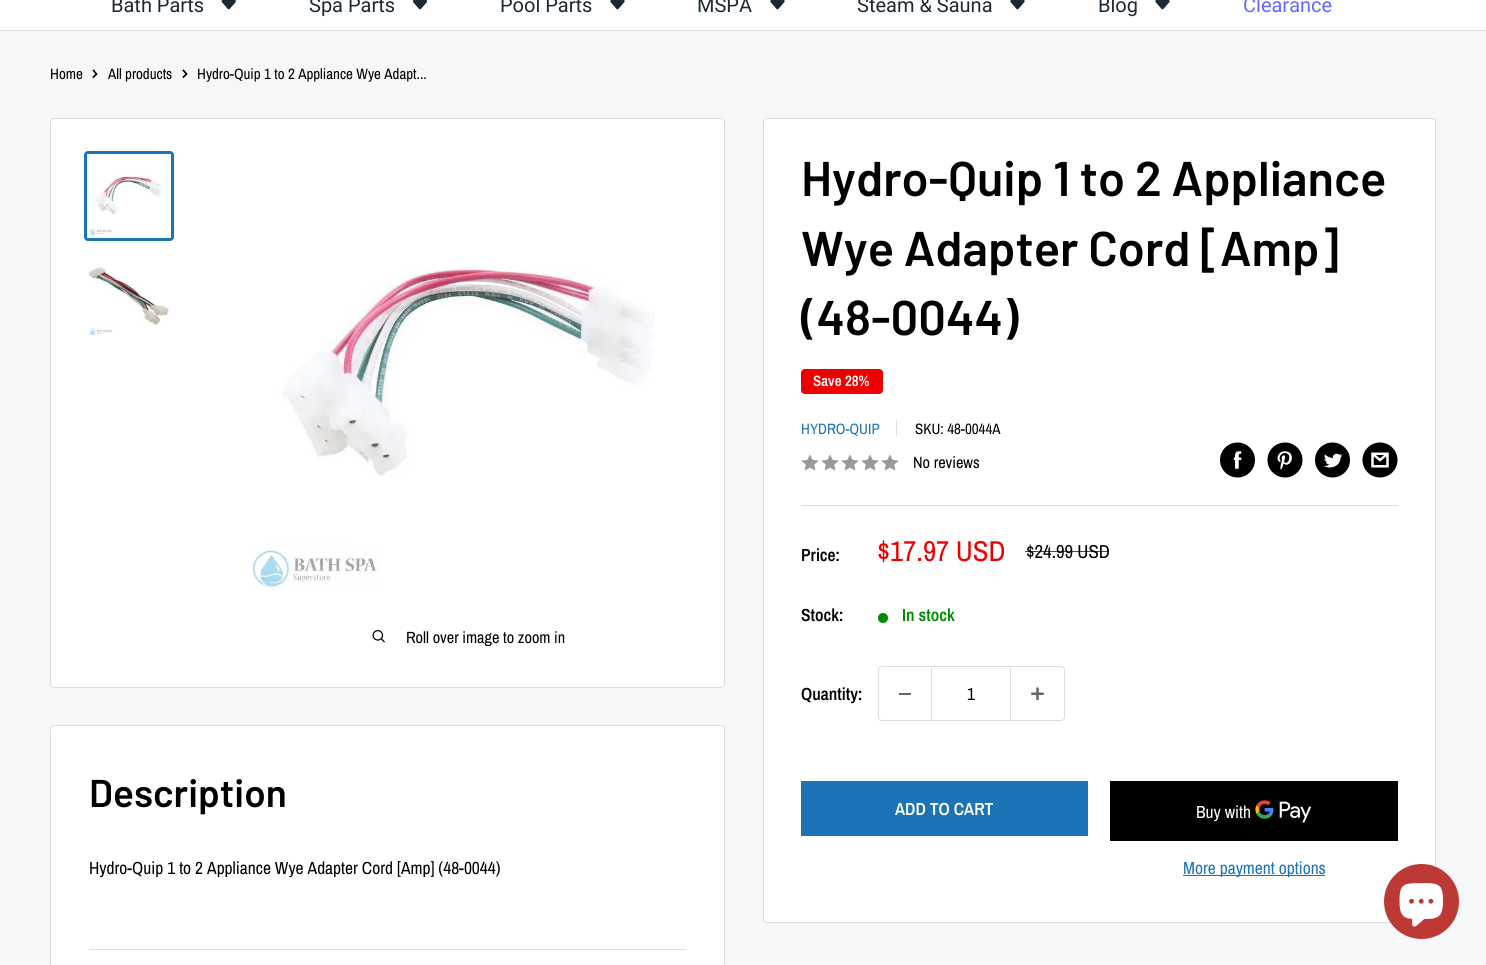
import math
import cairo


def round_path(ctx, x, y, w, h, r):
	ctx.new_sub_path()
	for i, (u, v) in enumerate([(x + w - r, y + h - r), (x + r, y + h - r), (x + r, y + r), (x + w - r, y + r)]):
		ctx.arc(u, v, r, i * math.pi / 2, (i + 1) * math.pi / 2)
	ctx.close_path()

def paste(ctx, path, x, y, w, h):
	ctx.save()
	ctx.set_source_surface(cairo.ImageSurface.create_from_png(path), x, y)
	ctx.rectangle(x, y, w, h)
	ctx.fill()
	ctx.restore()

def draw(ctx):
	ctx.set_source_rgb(0.961, 0.965, 0.976)
	ctx.paint()
	ctx.set_source_rgb(1, 1, 1)
	ctx.rectangle(0, 0, 1486, 30)
	ctx.fill()
	ctx.set_source_rgb(0.867, 0.867, 0.867)
	ctx.rectangle(0, 30, 1486, 1)
	ctx.fill()
	ctx.select_font_face('Roboto')
	ctx.set_font_size(20)
	ctx.set_source_rgb(0.102, 0.161, 0.2)
	ctx.move_to(111, 12)
	ctx.show_text('Bath Parts')
	paste(ctx, 'media/1.png', 221, 0, 15, 10)
	ctx.move_to(309, 12)
	ctx.show_text('Spa Parts')
	paste(ctx, 'media/2.png', 412, 0, 16, 10)
	ctx.move_to(500, 12)
	ctx.show_text('Pool Parts')
	paste(ctx, 'media/3.png', 610, 0, 15, 10)
	ctx.move_to(697, 12)
	ctx.show_text('MSPA')
	paste(ctx, 'media/3.png', 770, 0, 15, 10)
	ctx.move_to(857, 12)
	ctx.show_text('Steam & Sauna')
	paste(ctx, 'media/3.png', 1010, 0, 15, 10)
	ctx.move_to(1098, 12)
	ctx.show_text('Blog')
	paste(ctx, 'media/3.png', 1155, 0, 15, 10)
	ctx.set_source_rgb(0.4, 0.4, 1)
	ctx.move_to(1243, 12)
	ctx.show_text('Clearance')
	ctx.select_font_face('Archivo Narrow')
	ctx.set_font_size(15)
	ctx.set_source_rgb(0, 0, 0)
	ctx.move_to(50, 79)
	ctx.show_text('Home')
	ctx.new_path()
	ctx.move_to(93.5, 70.5)
	ctx.line_to(96.5, 74)
	ctx.line_to(93.5, 77)
	ctx.set_line_width(1.7)
	ctx.set_line_cap(cairo.LINE_CAP_SQUARE)
	ctx.stroke()
	ctx.move_to(108, 79)
	ctx.show_text('All products')
	ctx.new_path()
	ctx.move_to(183.5, 70.5)
	ctx.line_to(186.5, 74)
	ctx.line_to(183.5, 77)
	ctx.stroke()
	ctx.move_to(197, 79)
	ctx.show_text('Hydro-Quip 1 to 2 Appliance Wye Adapt...')
	ctx.set_source_rgb(1, 1, 1)
	round_path(ctx, 50.5, 118.5, 674, 569, 3.5)
	ctx.fill_preserve()
	ctx.set_source_rgb(0.867, 0.867, 0.867)
	ctx.set_line_width(1)
	ctx.set_line_cap(cairo.LINE_CAP_BUTT)
	ctx.stroke()
	round_path(ctx, 85.5, 152.5, 87, 87, 2.5)
	ctx.set_source_rgb(0.11, 0.451, 0.714)
	ctx.set_line_width(3)
	ctx.stroke()
	paste(ctx, 'media/4.png', 88, 175, 75, 61)
	paste(ctx, 'media/5.png', 88, 266, 81, 70)
	paste(ctx, 'media/6.png', 251, 264, 404, 326)
	paste(ctx, 'media/7.png', 372, 630, 13, 13)
	ctx.set_font_size(16.25)
	ctx.set_source_rgb(0, 0, 0)
	ctx.move_to(406, 643)
	ctx.show_text('Roll over image to zoom in')
	ctx.set_source_rgb(1, 1, 1)
	round_path(ctx, 763.5, 118.5, 672, 804, 3.5)
	ctx.fill_preserve()
	ctx.set_source_rgb(0.867, 0.867, 0.867)
	ctx.set_line_width(1)
	ctx.stroke()
	ctx.select_font_face('Barlow SemiBold')
	ctx.set_font_size(48.75)
	ctx.set_source_rgb(0, 0, 0)
	for x, y, s in [
		(801, 196, 'Hydro-Quip 1 to 2 Appliance'),
		(801, 266, 'Wye Adapter Cord [Amp]'),
		(801, 335, '(48-0044)'),
	]:
		ctx.move_to(x, y)
		ctx.show_text(s)
	ctx.set_source_rgb(0.933, 0, 0)
	round_path(ctx, 801, 369, 82, 25, 4)
	ctx.fill()
	ctx.select_font_face('Archivo Narrow SemiBold')
	ctx.set_font_size(15)
	ctx.set_source_rgb(1, 1, 1)
	ctx.move_to(813, 386)
	ctx.show_text('Save 28%')
	ctx.select_font_face('Archivo Narrow')
	ctx.set_source_rgb(0.11, 0.451, 0.714)
	ctx.move_to(801, 434)
	ctx.show_text('HYDRO-QUIP')
	ctx.set_source_rgb(0.867, 0.867, 0.867)
	ctx.rectangle(896, 420, 1, 16)
	ctx.fill()
	ctx.set_source_rgb(0, 0, 0)
	ctx.move_to(915, 434)
	ctx.show_text('SKU: 48-0044A')
	paste(ctx, 'media/8.png', 801, 454, 18, 17)
	paste(ctx, 'media/8.png', 821, 454, 18, 17)
	paste(ctx, 'media/8.png', 841, 454, 18, 17)
	paste(ctx, 'media/8.png', 861, 454, 18, 17)
	paste(ctx, 'media/8.png', 881, 454, 18, 17)
	ctx.set_font_size(16.25)
	ctx.move_to(913, 468)
	ctx.show_text('No reviews')
	paste(ctx, 'media/9.png', 1220, 442, 35, 36)
	paste(ctx, 'media/10.png', 1267, 442, 36, 36)
	paste(ctx, 'media/11.png', 1315, 442, 35, 36)
	paste(ctx, 'media/12.png', 1362, 442, 36, 36)
	ctx.set_source_rgb(0.867, 0.867, 0.867)
	ctx.rectangle(801, 505, 597, 1)
	ctx.fill()
	ctx.select_font_face('Archivo Narrow SemiBold')
	ctx.set_font_size(17.5)
	ctx.set_source_rgb(0, 0, 0)
	ctx.move_to(801, 561)
	ctx.show_text('Price:')
	ctx.select_font_face('Archivo Narrow')
	ctx.set_font_size(28.75)
	ctx.set_source_rgb(0.933, 0, 0)
	ctx.move_to(877, 561)
	ctx.show_text('$17.97 USD')
	ctx.set_font_size(18.75)
	ctx.set_source_rgb(0, 0, 0)
	ctx.move_to(1026, 558)
	ctx.show_text('$24.99 USD')
	ctx.set_source_rgba(0, 0, 0, 0.7)
	ctx.rectangle(1025, 551, 84, 1)
	ctx.fill()
	ctx.select_font_face('Archivo Narrow SemiBold')
	ctx.set_font_size(17.5)
	ctx.set_source_rgb(0, 0, 0)
	ctx.move_to(801, 621)
	ctx.show_text('Stock:')
	ctx.set_source_rgb(0, 0.541, 0)
	ctx.new_path()
	ctx.arc(883, 618, 5, 0, 2 * math.pi)
	ctx.fill()
	ctx.move_to(902, 621)
	ctx.show_text('In stock')
	ctx.set_source_rgb(0, 0, 0)
	ctx.move_to(801, 700)
	ctx.show_text('Quantity:')
	round_path(ctx, 878.5, 666.5, 186, 54, 3.5)
	ctx.set_source_rgb(0.867, 0.867, 0.867)
	ctx.stroke()
	ctx.set_source_rgb(0.4, 0.4, 0.4)
	ctx.rectangle(899, 693, 12, 2)
	ctx.fill()
	ctx.set_source_rgb(0.945, 0.945, 0.945)
	ctx.rectangle(933, 668, 77, 1)
	ctx.fill()
	ctx.set_source_rgb(0.867, 0.867, 0.867)
	ctx.rectangle(1010, 668, 1, 52)
	ctx.rectangle(931, 668, 1, 52)
	ctx.fill()
	ctx.select_font_face('Archivo Narrow')
	ctx.set_source_rgb(0, 0, 0)
	ctx.move_to(967, 700)
	ctx.show_text('1')
	paste(ctx, 'media/13.png', 1031, 687, 13, 13)
	ctx.set_source_rgb(0.11, 0.451, 0.714)
	ctx.rectangle(801, 781, 287, 55)
	ctx.fill()
	ctx.select_font_face('Archivo Narrow SemiBold')
	ctx.set_source_rgb(1, 1, 1)
	ctx.move_to(895, 815)
	ctx.show_text('ADD TO CART')
	ctx.set_source_rgb(0, 0, 0)
	ctx.rectangle(1110, 781, 288, 60)
	ctx.fill()
	ctx.select_font_face('Archivo Narrow')
	ctx.set_source_rgb(1, 1, 1)
	ctx.move_to(1196, 818)
	ctx.show_text('Buy with')
	paste(ctx, 'media/14.png', 1255, 800, 56, 23)
	ctx.set_source_rgb(0.11, 0.451, 0.714)
	ctx.rectangle(1183, 875, 142, 1)
	ctx.fill()
	ctx.move_to(1183, 874)
	ctx.show_text('More payment options')
	ctx.set_source_rgb(1, 1, 1)
	round_path(ctx, 50.5, 725.5, 674, 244, 3.5)
	ctx.fill_preserve()
	ctx.set_source_rgb(0.867, 0.867, 0.867)
	ctx.stroke()
	ctx.select_font_face('Barlow SemiBold')
	ctx.set_font_size(38.75)
	ctx.set_source_rgb(0, 0, 0)
	ctx.move_to(89, 807)
	ctx.show_text('Description')
	ctx.select_font_face('Archivo Narrow')
	ctx.set_font_size(17.5)
	ctx.move_to(89, 874)
	ctx.show_text('Hydro-Quip 1 to 2 Appliance Wye Adapter Cord [Amp] (48-0044)')
	ctx.set_source_rgb(0.867, 0.867, 0.867)
	ctx.rectangle(89, 949, 597, 1)
	ctx.fill()
	ctx.set_source_rgb(0.741, 0.224, 0.212)
	ctx.arc(1421.5, 901.5, 37.5, 0, 2 * math.pi)
	ctx.fill()
	paste(ctx, 'media/15.png', 1399, 883, 44, 44)


surface = cairo.ImageSurface(cairo.FORMAT_RGB24, 1486, 965)
ctx = cairo.Context(surface)
options = cairo.FontOptions()
options.set_hint_metrics(cairo.HINT_METRICS_OFF)
options.set_hint_style(cairo.HINT_STYLE_NONE)
ctx.set_font_options(options)
ctx.set_miter_limit(4)
draw(ctx)
surface.write_to_png('image.png')
